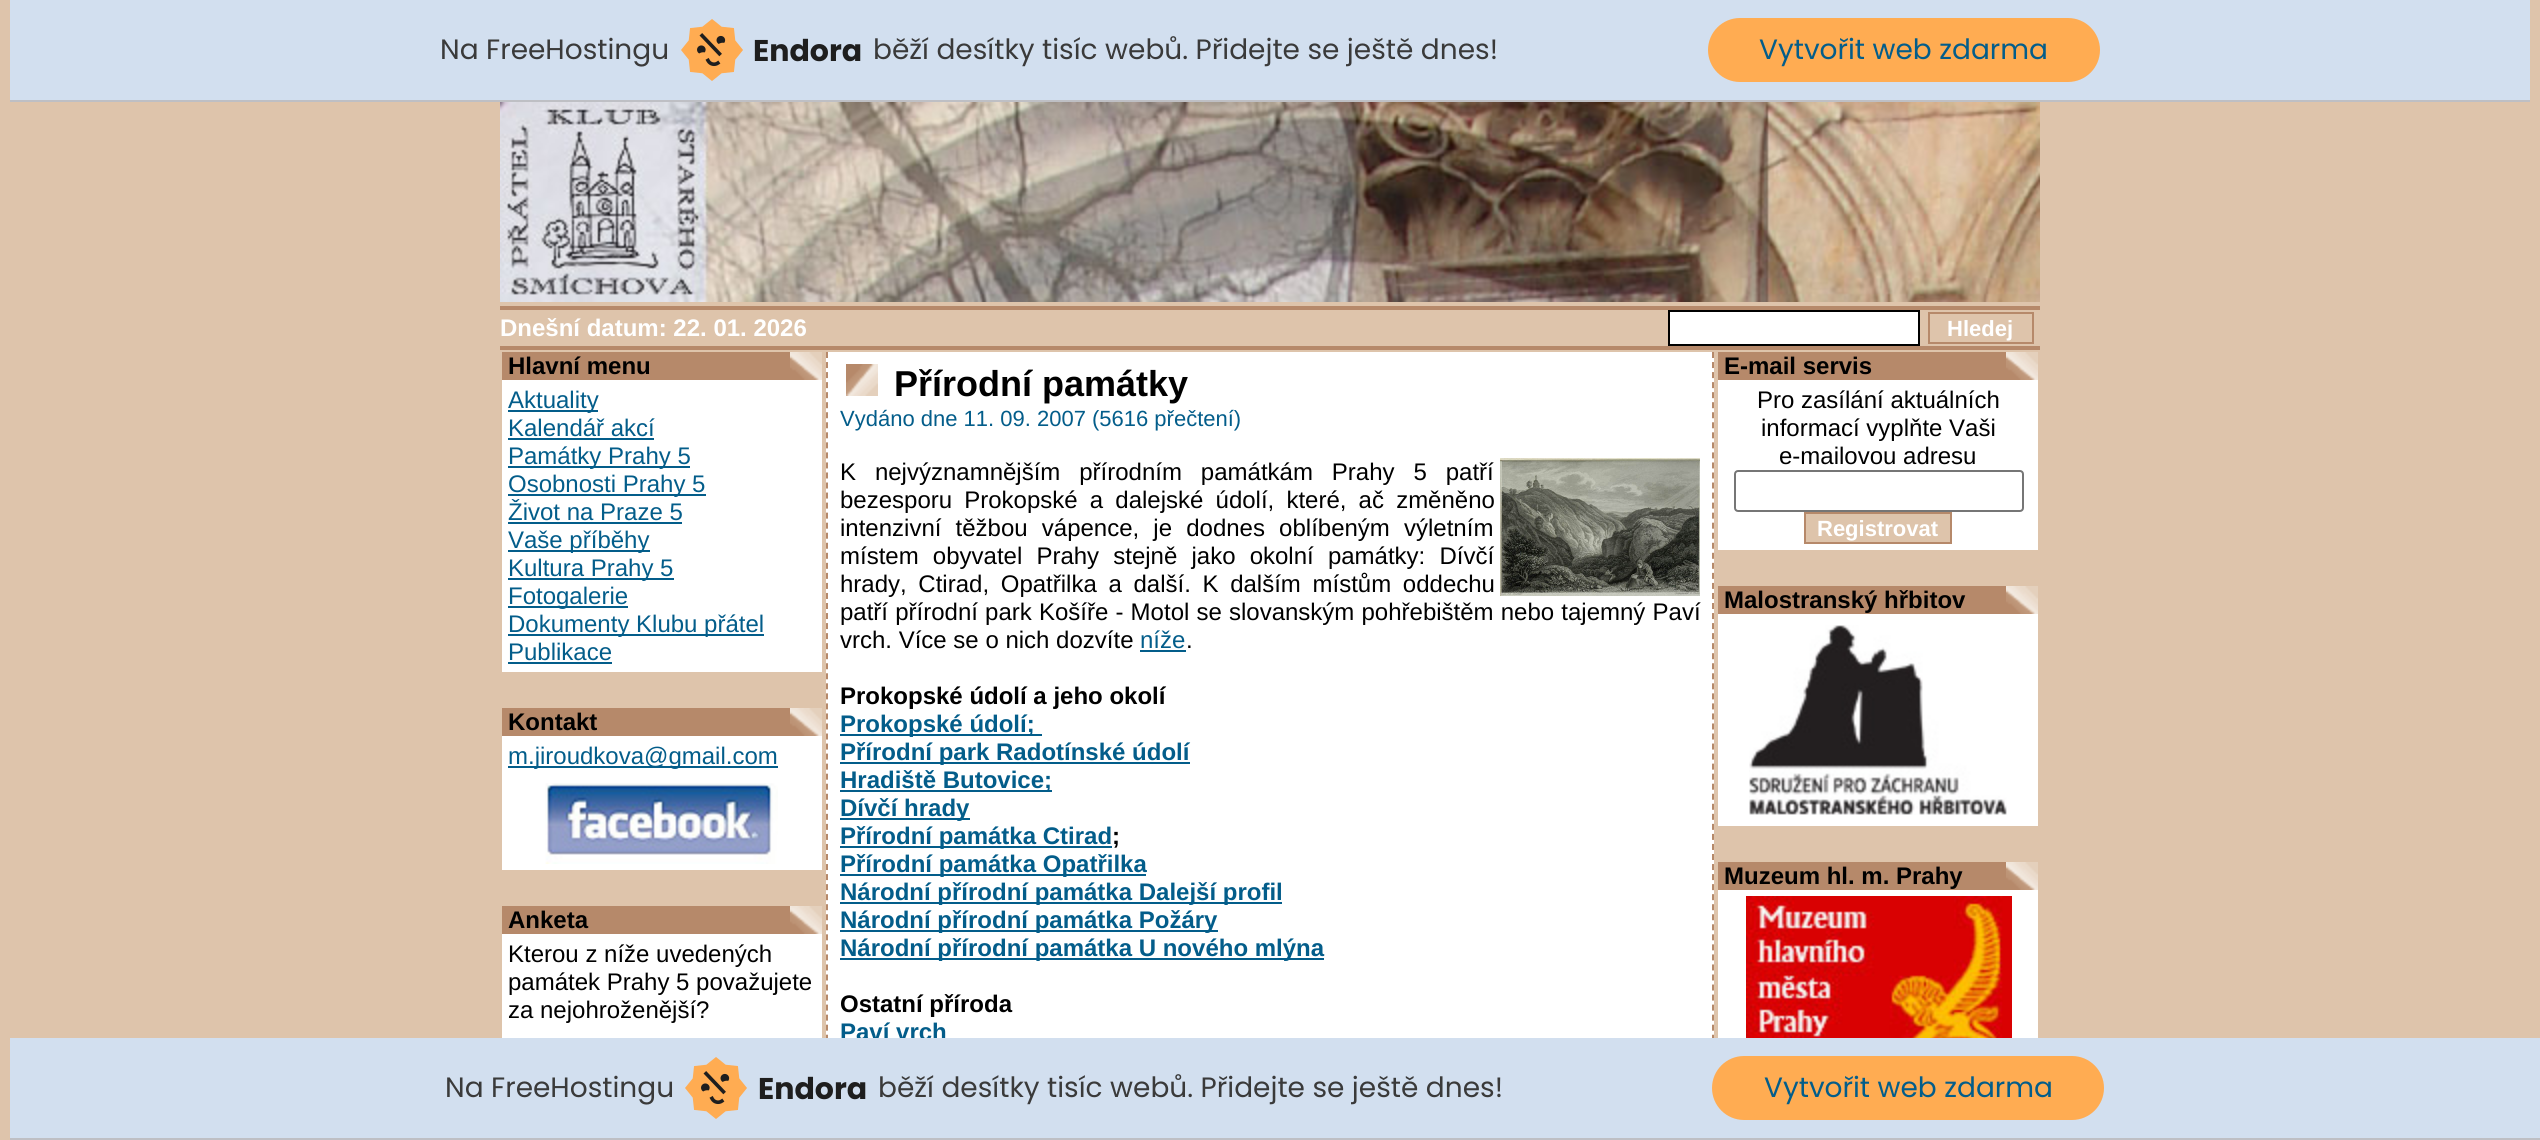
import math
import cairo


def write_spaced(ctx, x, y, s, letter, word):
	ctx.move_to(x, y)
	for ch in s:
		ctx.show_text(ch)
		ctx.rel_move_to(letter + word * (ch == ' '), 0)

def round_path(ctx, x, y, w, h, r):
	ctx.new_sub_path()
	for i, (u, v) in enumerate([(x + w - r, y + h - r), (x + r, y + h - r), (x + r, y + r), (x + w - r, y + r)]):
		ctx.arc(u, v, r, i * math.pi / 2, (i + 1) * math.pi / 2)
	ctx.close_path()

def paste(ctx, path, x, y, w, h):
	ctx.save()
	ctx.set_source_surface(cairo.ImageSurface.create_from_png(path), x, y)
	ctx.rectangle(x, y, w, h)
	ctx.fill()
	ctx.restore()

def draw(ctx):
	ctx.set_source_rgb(0.871, 0.769, 0.671)
	ctx.paint()
	ctx.set_source_rgb(0.824, 0.875, 0.937)
	ctx.rectangle(10, 0, 2520, 100)
	ctx.fill()
	ctx.set_source_rgb(0.745, 0.749, 0.769)
	ctx.rectangle(10, 100, 2520, 2)
	ctx.fill()
	ctx.select_font_face('Poppins')
	ctx.set_font_size(28)
	ctx.set_source_rgb(0.227, 0.227, 0.227)
	ctx.move_to(440, 59)
	ctx.show_text('Na FreeHostingu')
	paste(ctx, 'media/1.png', 681, 19, 62, 62)
	ctx.select_font_face('Poppins', cairo.FONT_SLANT_NORMAL, cairo.FONT_WEIGHT_BOLD)
	ctx.set_font_size(30)
	ctx.set_source_rgb(0.118, 0.118, 0.118)
	ctx.move_to(753, 61)
	ctx.show_text('Endora')
	ctx.select_font_face('Poppins')
	ctx.set_font_size(28)
	ctx.set_source_rgb(0.227, 0.227, 0.227)
	ctx.move_to(873, 59)
	ctx.show_text('běží desítky tisíc webů. Přidejte se ještě dnes!')
	ctx.set_source_rgb(1, 0.675, 0.322)
	round_path(ctx, 1708, 18, 392, 64, 32)
	ctx.fill()
	ctx.set_source_rgb(0.012, 0.365, 0.541)
	ctx.move_to(1759, 59)
	ctx.show_text('Vytvořit web zdarma')
	paste(ctx, 'media/2.png', 500, 102, 1540, 200)
	ctx.set_source_rgb(0.714, 0.537, 0.416)
	ctx.rectangle(500, 306, 1540, 4)
	ctx.fill()
	ctx.rectangle(500, 346, 1540, 4)
	ctx.fill()
	ctx.select_font_face('Liberation Sans', cairo.FONT_SLANT_NORMAL, cairo.FONT_WEIGHT_BOLD)
	ctx.set_font_size(24)
	ctx.set_source_rgb(1, 1, 1)
	ctx.move_to(500, 336)
	ctx.show_text('Dnešní datum: 22. 01. 2026')
	ctx.rectangle(1669, 311, 250, 34)
	ctx.fill_preserve()
	ctx.set_source_rgb(0, 0, 0)
	ctx.stroke()
	ctx.rectangle(1929, 313, 104, 30)
	ctx.set_source_rgb(0.714, 0.537, 0.416)
	ctx.stroke()
	ctx.set_font_size(22)
	ctx.set_source_rgb(1, 1, 1)
	ctx.move_to(1947, 336)
	ctx.show_text('Hledej')
	ctx.rectangle(502, 380, 320, 292)
	ctx.fill()
	ctx.set_source_rgb(0.714, 0.537, 0.416)
	ctx.rectangle(502, 352, 288, 28)
	ctx.fill()
	paste(ctx, 'media/3.png', 790, 352, 32, 28)
	ctx.set_font_size(24)
	ctx.set_source_rgb(0, 0, 0)
	ctx.move_to(508, 374)
	ctx.show_text('Hlavní menu')
	ctx.set_source_rgb(0.012, 0.365, 0.541)
	ctx.rectangle(508, 410, 90, 2)
	ctx.fill()
	ctx.select_font_face('Liberation Sans')
	ctx.move_to(508, 408)
	ctx.show_text('Aktuality')
	ctx.move_to(508, 436)
	ctx.show_text('Kalendář akcí')
	ctx.rectangle(508, 438, 146, 2)
	ctx.fill()
	ctx.rectangle(508, 466, 182, 2)
	ctx.fill()
	ctx.move_to(508, 464)
	ctx.show_text('Památky Prahy 5')
	ctx.rectangle(508, 494, 198, 2)
	ctx.fill()
	ctx.move_to(508, 492)
	ctx.show_text('Osobnosti Prahy 5')
	ctx.move_to(508, 520)
	ctx.show_text('Život na Praze 5')
	ctx.rectangle(508, 522, 174, 2)
	ctx.fill()
	ctx.rectangle(508, 550, 142, 2)
	ctx.fill()
	ctx.move_to(508, 548)
	ctx.show_text('Vaše příběhy')
	ctx.rectangle(508, 578, 166, 2)
	ctx.fill()
	ctx.move_to(508, 576)
	ctx.show_text('Kultura Prahy 5')
	ctx.rectangle(508, 606, 120, 2)
	ctx.fill()
	ctx.move_to(508, 604)
	ctx.show_text('Fotogalerie')
	ctx.rectangle(508, 634, 256, 2)
	ctx.fill()
	ctx.move_to(508, 632)
	ctx.show_text('Dokumenty Klubu přátel')
	ctx.move_to(508, 660)
	ctx.show_text('Publikace')
	ctx.rectangle(508, 662, 104, 2)
	ctx.fill()
	ctx.set_source_rgb(1, 1, 1)
	ctx.rectangle(502, 736, 320, 134)
	ctx.fill()
	ctx.set_source_rgb(0.714, 0.537, 0.416)
	ctx.rectangle(502, 708, 288, 28)
	ctx.fill()
	paste(ctx, 'media/3.png', 790, 708, 32, 28)
	ctx.select_font_face('Liberation Sans', cairo.FONT_SLANT_NORMAL, cairo.FONT_WEIGHT_BOLD)
	ctx.set_source_rgb(0, 0, 0)
	ctx.move_to(508, 730)
	ctx.show_text('Kontakt')
	ctx.set_source_rgb(0.012, 0.365, 0.541)
	ctx.rectangle(508, 766, 270, 2)
	ctx.fill()
	ctx.select_font_face('Liberation Sans')
	ctx.move_to(508, 764)
	ctx.show_text('m.jiroudkova@gmail.com')
	paste(ctx, 'media/4.png', 545, 783, 233, 81)
	ctx.set_source_rgb(1, 1, 1)
	ctx.rectangle(502, 934, 320, 104)
	ctx.fill()
	ctx.set_source_rgb(0.714, 0.537, 0.416)
	ctx.rectangle(502, 906, 288, 28)
	ctx.fill()
	paste(ctx, 'media/3.png', 790, 906, 32, 28)
	ctx.select_font_face('Liberation Sans', cairo.FONT_SLANT_NORMAL, cairo.FONT_WEIGHT_BOLD)
	ctx.set_source_rgb(0, 0, 0)
	ctx.move_to(508, 928)
	ctx.show_text('Anketa')
	ctx.select_font_face('Liberation Sans')
	for x, y, s in [
		(508, 962, 'Kterou z níže uvedených'),
		(508, 990, 'památek Prahy 5 považujete'),
		(508, 1018, 'za nejohroženější?'),
	]:
		ctx.move_to(x, y)
		ctx.show_text(s)
	ctx.set_source_rgb(1, 1, 1)
	ctx.rectangle(826, 352, 888, 686)
	ctx.fill()
	ctx.new_path()
	ctx.move_to(1713, 352)
	ctx.line_to(1713, 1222)
	ctx.set_source_rgb(0.714, 0.537, 0.416)
	ctx.set_dash([6, 4.04])
	ctx.stroke()
	ctx.new_path()
	ctx.move_to(827, 352)
	ctx.line_to(827, 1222)
	ctx.stroke()
	paste(ctx, 'media/5.png', 846, 364, 32, 32)
	ctx.select_font_face('Liberation Sans', cairo.FONT_SLANT_NORMAL, cairo.FONT_WEIGHT_BOLD)
	ctx.set_font_size(36)
	ctx.set_source_rgb(0, 0, 0)
	ctx.move_to(894, 396)
	ctx.show_text('Přírodní památky')
	ctx.select_font_face('Liberation Sans')
	ctx.set_font_size(22)
	ctx.set_source_rgb(0.012, 0.365, 0.541)
	ctx.move_to(840, 426)
	ctx.show_text('Vydáno dne 11. 09. 2007 (5616 přečtení)')
	ctx.set_font_size(24)
	ctx.set_source_rgb(0, 0, 0)
	write_spaced(ctx, 840, 480, 'K nejvýznamnějším přírodním památkám Prahy 5 patří', 0, 12.25)
	paste(ctx, 'media/6.png', 1500, 458, 200, 138)
	write_spaced(ctx, 840, 508, 'bezesporu Prokopské a dalejské údolí, které, ač změněno', 0, 5.5)
	write_spaced(ctx, 840, 536, 'intenzivní těžbou vápence, je dodnes oblíbeným výletním', 0, 7.5)
	write_spaced(ctx, 840, 564, 'místem obyvatel Prahy stejně jako okolní památky: Dívčí', 0, 7.5)
	write_spaced(ctx, 840, 592, 'hrady, Ctirad, Opatřilka a další. K dalším místům oddechu', 0, 5)
	write_spaced(ctx, 840, 620, 'patří přírodní park Košíře - Motol se slovanským pohřebištěm nebo tajemný Paví', 0, 0.5)
	ctx.move_to(840, 648)
	ctx.show_text('vrch. Více se o nich dozvíte')
	ctx.set_source_rgb(0.012, 0.365, 0.541)
	ctx.move_to(1140, 648)
	ctx.show_text('níže')
	ctx.rectangle(1140, 650, 46, 2)
	ctx.fill()
	ctx.set_source_rgb(0, 0, 0)
	ctx.move_to(1186, 648)
	ctx.show_text('.')
	ctx.select_font_face('Liberation Sans', cairo.FONT_SLANT_NORMAL, cairo.FONT_WEIGHT_BOLD)
	ctx.move_to(840, 704)
	ctx.show_text('Prokopské údolí a jeho okolí')
	ctx.set_source_rgb(0.012, 0.365, 0.541)
	ctx.rectangle(840, 734, 202, 2)
	ctx.fill()
	ctx.move_to(840, 732)
	ctx.show_text('Prokopské údolí;')
	ctx.rectangle(840, 762, 350, 2)
	ctx.fill()
	ctx.move_to(840, 760)
	ctx.show_text('Přírodní park Radotínské údolí')
	ctx.rectangle(840, 790, 212, 2)
	ctx.fill()
	ctx.move_to(840, 788)
	ctx.show_text('Hradiště Butovice;')
	ctx.rectangle(840, 818, 130, 2)
	ctx.fill()
	ctx.move_to(840, 816)
	ctx.show_text('Dívčí hrady')
	ctx.rectangle(840, 846, 272, 2)
	ctx.fill()
	ctx.move_to(840, 844)
	ctx.show_text('Přírodní památka Ctirad')
	ctx.set_source_rgb(0, 0, 0)
	ctx.move_to(1112, 844)
	ctx.show_text(';')
	ctx.set_source_rgb(0.012, 0.365, 0.541)
	ctx.rectangle(840, 874, 306, 2)
	ctx.fill()
	ctx.move_to(840, 872)
	ctx.show_text('Přírodní památka Opatřilka')
	ctx.rectangle(840, 902, 442, 2)
	ctx.fill()
	ctx.move_to(840, 900)
	ctx.show_text('Národní přírodní památka Dalejší profil')
	ctx.rectangle(840, 930, 378, 2)
	ctx.fill()
	ctx.move_to(840, 928)
	ctx.show_text('Národní přírodní památka Požáry')
	ctx.rectangle(840, 958, 484, 2)
	ctx.fill()
	ctx.move_to(840, 956)
	ctx.show_text('Národní přírodní památka U nového mlýna')
	ctx.set_source_rgb(0, 0, 0)
	ctx.move_to(840, 1012)
	ctx.show_text('Ostatní příroda')
	ctx.set_source_rgb(0.012, 0.365, 0.541)
	ctx.move_to(840, 1040)
	ctx.show_text('Paví vrch')
	ctx.set_source_rgb(1, 1, 1)
	ctx.rectangle(1718, 380, 320, 170)
	ctx.fill()
	ctx.set_source_rgb(0.714, 0.537, 0.416)
	ctx.rectangle(1718, 352, 288, 28)
	ctx.fill()
	paste(ctx, 'media/3.png', 2006, 352, 32, 28)
	ctx.set_source_rgb(0, 0, 0)
	ctx.move_to(1724, 374)
	ctx.show_text('E-mail servis')
	ctx.select_font_face('Liberation Sans')
	for x, y, s in [
		(1757, 408, 'Pro zasílání aktuálních'),
		(1761, 436, 'informací vyplňte Vaši'),
		(1779, 464, 'e-mailovou adresu'),
	]:
		ctx.move_to(x, y)
		ctx.show_text(s)
	round_path(ctx, 1735, 471, 288, 40, 3)
	ctx.set_source_rgb(0.463, 0.463, 0.463)
	ctx.set_dash([])
	ctx.stroke()
	ctx.set_source_rgb(0.871, 0.769, 0.671)
	ctx.rectangle(1805, 513, 146, 30)
	ctx.fill_preserve()
	ctx.set_source_rgb(0.714, 0.537, 0.416)
	ctx.stroke()
	ctx.select_font_face('Liberation Sans', cairo.FONT_SLANT_NORMAL, cairo.FONT_WEIGHT_BOLD)
	ctx.set_font_size(22)
	ctx.set_source_rgb(1, 1, 1)
	ctx.move_to(1817, 536)
	ctx.show_text('Registrovat')
	ctx.rectangle(1718, 614, 320, 212)
	ctx.fill()
	ctx.set_source_rgb(0.714, 0.537, 0.416)
	ctx.rectangle(1718, 586, 288, 28)
	ctx.fill()
	paste(ctx, 'media/3.png', 2006, 586, 32, 28)
	ctx.set_font_size(24)
	ctx.set_source_rgb(0, 0, 0)
	ctx.move_to(1724, 608)
	ctx.show_text('Malostranský hřbitov')
	paste(ctx, 'media/7.png', 1749, 625, 258, 190)
	ctx.set_source_rgb(1, 1, 1)
	ctx.rectangle(1718, 890, 320, 148)
	ctx.fill()
	ctx.set_source_rgb(0.714, 0.537, 0.416)
	ctx.rectangle(1718, 862, 288, 28)
	ctx.fill()
	paste(ctx, 'media/3.png', 2006, 862, 32, 28)
	ctx.set_source_rgb(0, 0, 0)
	ctx.move_to(1724, 884)
	ctx.show_text('Muzeum hl. m. Prahy')
	paste(ctx, 'media/8.png', 1746, 896, 266, 142)
	ctx.set_source_rgb(0.824, 0.875, 0.937)
	ctx.rectangle(10, 1038, 2530, 100)
	ctx.fill()
	ctx.set_source_rgb(0.745, 0.749, 0.769)
	ctx.rectangle(10, 1138, 2530, 2)
	ctx.fill()
	ctx.select_font_face('Poppins')
	ctx.set_font_size(28)
	ctx.set_source_rgb(0.227, 0.227, 0.227)
	ctx.move_to(445, 1097)
	ctx.show_text('Na FreeHostingu')
	paste(ctx, 'media/1.png', 685, 1057, 62, 62)
	ctx.select_font_face('Poppins', cairo.FONT_SLANT_NORMAL, cairo.FONT_WEIGHT_BOLD)
	ctx.set_font_size(30)
	ctx.set_source_rgb(0.118, 0.118, 0.118)
	ctx.move_to(758, 1099)
	ctx.show_text('Endora')
	ctx.select_font_face('Poppins')
	ctx.set_font_size(28)
	ctx.set_source_rgb(0.227, 0.227, 0.227)
	ctx.move_to(878, 1097)
	ctx.show_text('běží desítky tisíc webů. Přidejte se ještě dnes!')
	ctx.set_source_rgb(1, 0.675, 0.322)
	round_path(ctx, 1712, 1056, 392, 64, 32)
	ctx.fill()
	ctx.set_source_rgb(0.012, 0.365, 0.541)
	ctx.move_to(1764, 1097)
	ctx.show_text('Vytvořit web zdarma')


surface = cairo.ImageSurface(cairo.FORMAT_RGB24, 2540, 1140)
ctx = cairo.Context(surface)
options = cairo.FontOptions()
options.set_hint_metrics(cairo.HINT_METRICS_OFF)
options.set_hint_style(cairo.HINT_STYLE_NONE)
ctx.set_font_options(options)
ctx.set_miter_limit(4)
draw(ctx)
surface.write_to_png('image.png')
